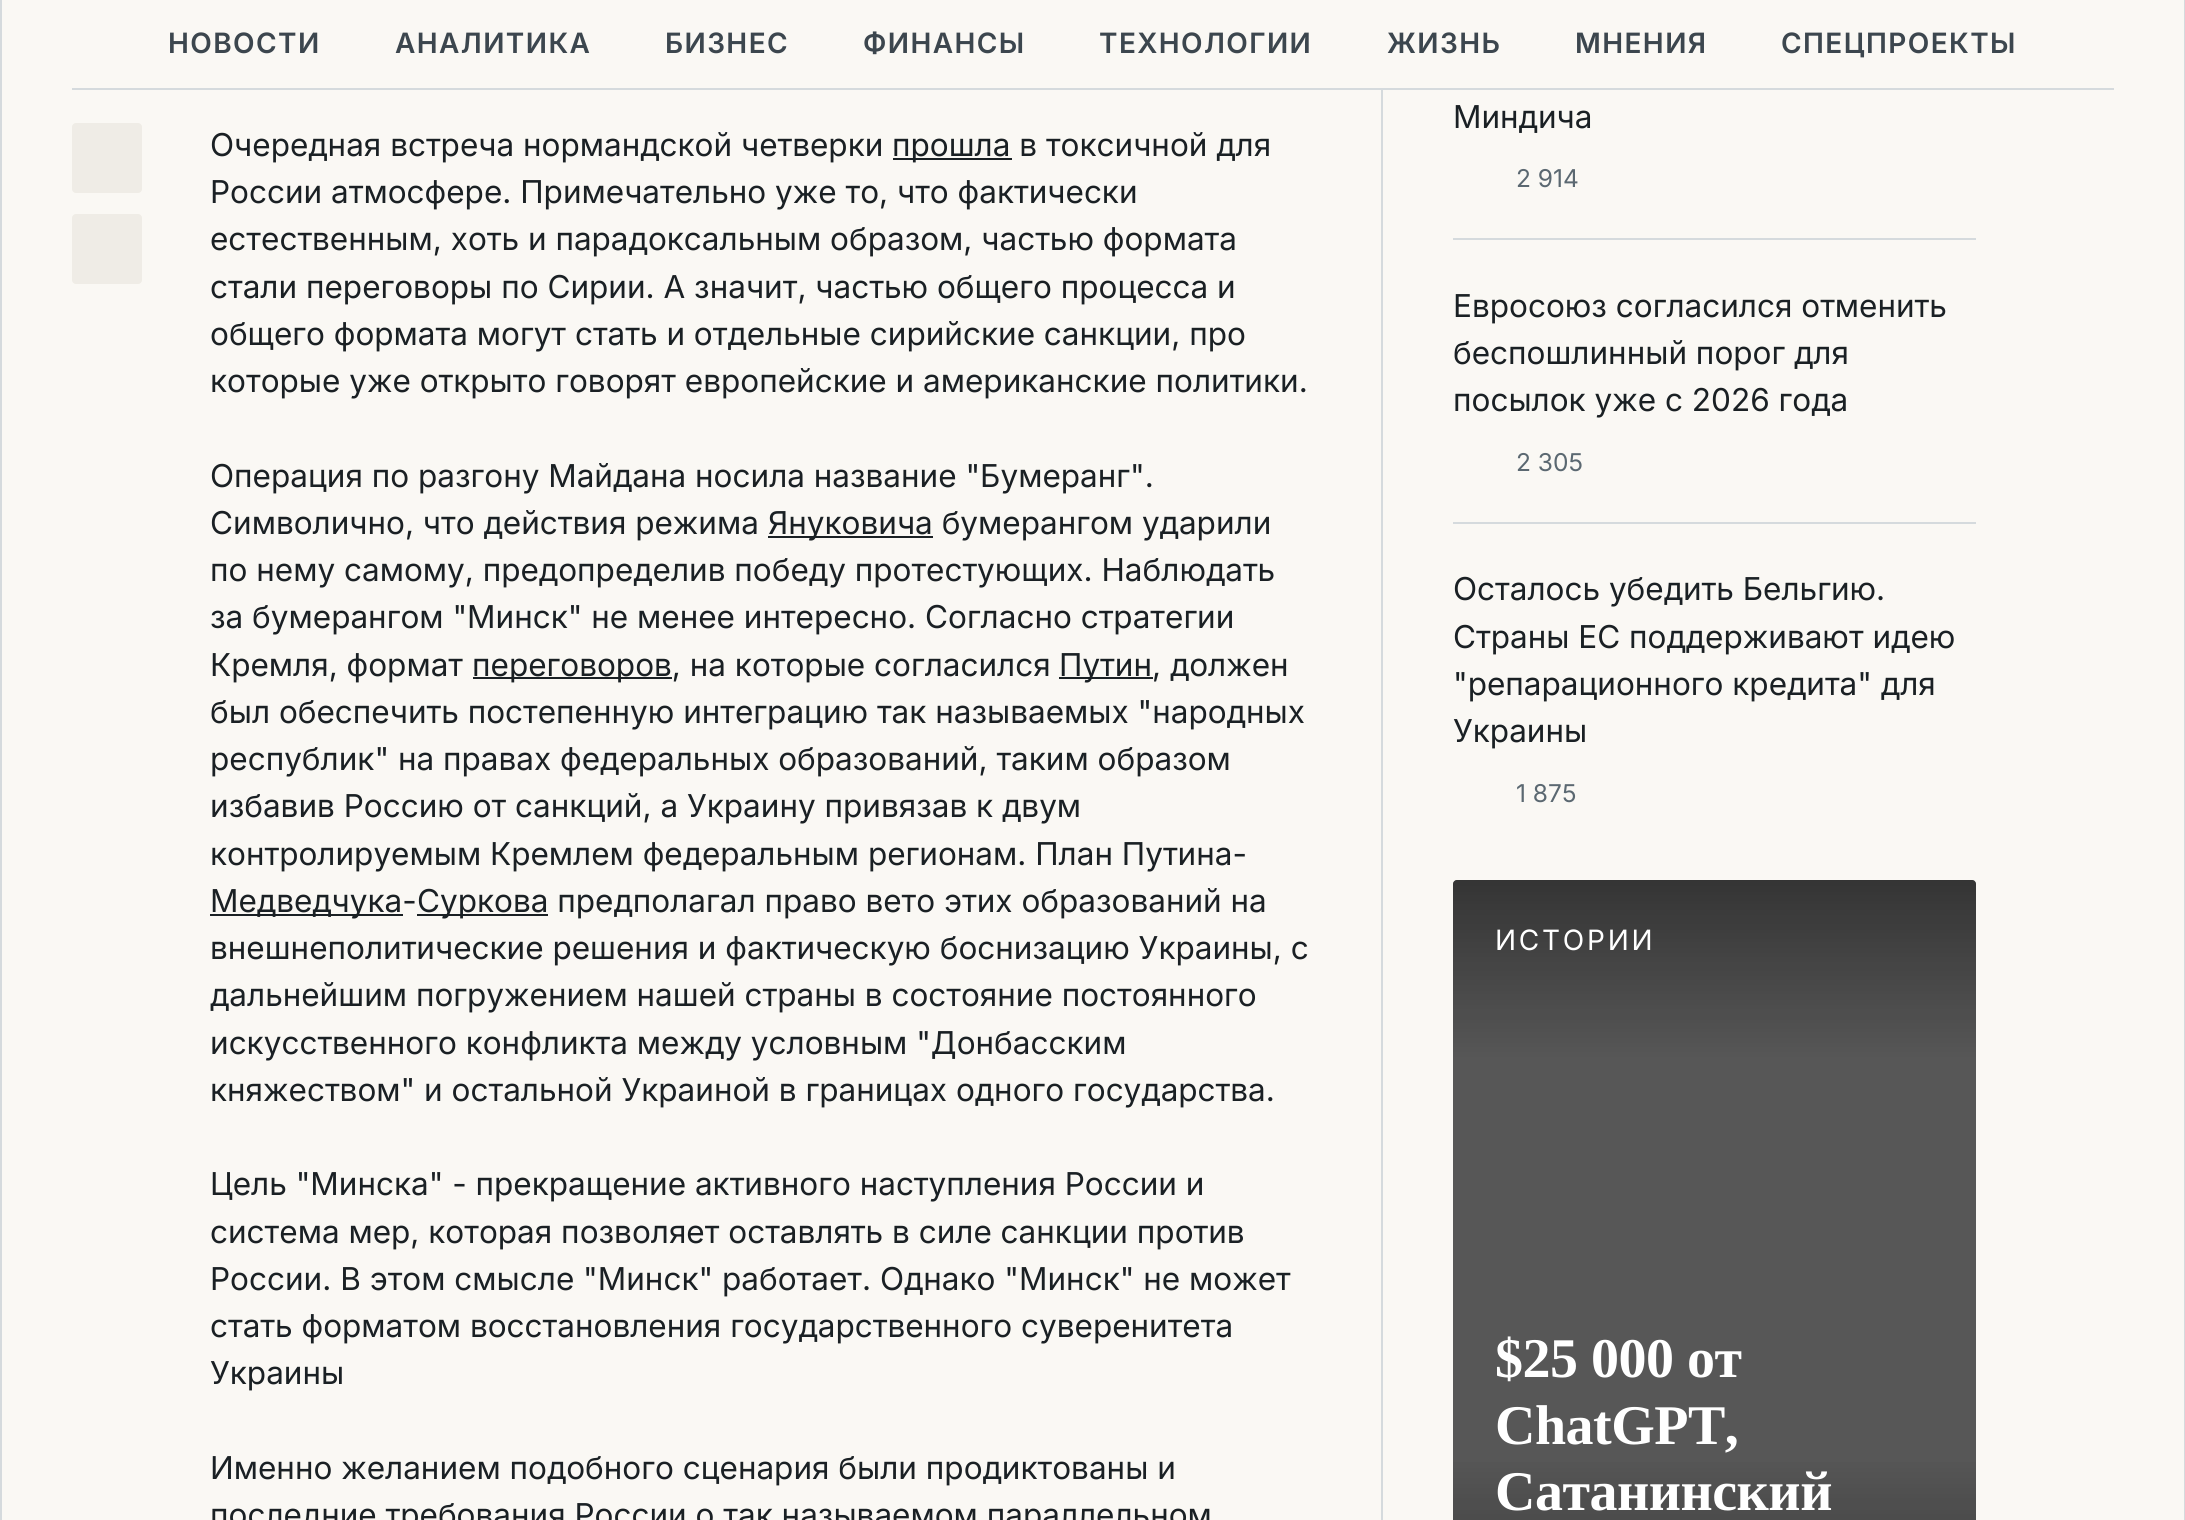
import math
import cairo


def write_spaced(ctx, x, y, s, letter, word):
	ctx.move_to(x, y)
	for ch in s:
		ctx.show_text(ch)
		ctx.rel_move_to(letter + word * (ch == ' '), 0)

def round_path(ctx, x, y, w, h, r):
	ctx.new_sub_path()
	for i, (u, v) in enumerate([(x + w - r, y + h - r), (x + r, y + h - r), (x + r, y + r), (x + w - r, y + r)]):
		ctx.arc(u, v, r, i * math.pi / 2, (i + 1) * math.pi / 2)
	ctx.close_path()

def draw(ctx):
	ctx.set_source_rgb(0.98, 0.969, 0.957)
	ctx.paint()
	ctx.set_source_rgb(0.835, 0.855, 0.867)
	ctx.rectangle(2184, 0, 1, 1520)
	ctx.rectangle(0, 0, 2, 1520)
	ctx.rectangle(72, 88, 2042, 2)
	ctx.fill()
	ctx.select_font_face('Inter SemiBold')
	ctx.set_font_size(28)
	ctx.set_source_rgb(0.235, 0.275, 0.306)
	for x, y, s in [
		(168, 53, 'НОВОСТИ'),
		(395, 53, 'АНАЛИТИКА'),
		(665, 53, 'БИЗНЕС'),
		(863, 53, 'ФИНАНСЫ'),
		(1099, 53, 'ТЕХНОЛОГИИ'),
		(1387, 53, 'ЖИЗНЬ'),
		(1575, 53, 'МНЕНИЯ'),
		(1781, 53, 'СПЕЦПРОЕКТЫ'),
	]:
		write_spaced(ctx, x, y, s, 1.4, 0)
	ctx.set_source_rgb(0.937, 0.922, 0.902)
	round_path(ctx, 72, 123, 70, 70, 4)
	ctx.fill()
	round_path(ctx, 72, 214, 70, 70, 4)
	ctx.fill()
	ctx.select_font_face('Inter')
	ctx.set_font_size(31.5)
	ctx.set_source_rgb(0.102, 0.125, 0.141)
	ctx.move_to(210, 156)
	ctx.show_text('Очередная встреча нормандской четверки')
	ctx.rectangle(893, 158, 119, 2)
	ctx.fill()
	for x, y, s in [
		(892, 156, 'прошла в токсичной для'),
		(210, 203, 'России атмосфере. Примечательно уже то, что фактически'),
		(210, 250, 'естественным, хоть и парадоксальным образом, частью формата'),
		(210, 298, 'стали переговоры по Сирии. А значит, частью общего процесса и'),
		(210, 345, 'общего формата могут стать и отдельные сирийские санкции, про'),
		(210, 392, 'которые уже открыто говорят европейские и американские политики.'),
		(210, 487, 'Операция по разгону Майдана носила название "Бумеранг".'),
		(210, 534, 'Символично, что действия режима'),
	]:
		ctx.move_to(x, y)
		ctx.show_text(s)
	ctx.rectangle(768, 536, 165, 2)
	ctx.fill()
	for x, y, s in [
		(768, 534, 'Януковича бумерангом ударили'),
		(210, 581, 'по нему самому, предопределив победу протестующих. Наблюдать'),
		(210, 628, 'за бумерангом "Минск" не менее интересно. Согласно стратегии'),
		(210, 676, 'Кремля, формат'),
	]:
		ctx.move_to(x, y)
		ctx.show_text(s)
	ctx.rectangle(473, 677, 199, 2)
	ctx.fill()
	ctx.move_to(472, 676)
	ctx.show_text('переговоров, на которые согласился')
	ctx.rectangle(1059, 677, 94, 2)
	ctx.fill()
	for x, y, s in [
		(1059, 676, 'Путин, должен'),
		(210, 723, 'был обеспечить постепенную интеграцию так называемых "народных'),
		(210, 770, 'республик" на правах федеральных образований, таким образом'),
		(210, 817, 'избавив Россию от санкций, а Украину привязав к двум'),
		(210, 865, 'контролируемым Кремлем федеральным регионам. План Путина-'),
	]:
		ctx.move_to(x, y)
		ctx.show_text(s)
	ctx.rectangle(210, 914, 193, 2)
	ctx.fill()
	ctx.move_to(210, 912)
	ctx.show_text('Медведчука-')
	ctx.rectangle(417, 914, 131, 2)
	ctx.fill()
	for x, y, s in [
		(417, 912, 'Суркова предполагал право вето этих образований на'),
		(210, 959, 'внешнеполитические решения и фактическую боснизацию Украины, с'),
		(210, 1006, 'дальнейшим погружением нашей страны в состояние постоянного'),
		(210, 1054, 'искусственного конфликта между условным "Донбасским'),
		(210, 1101, 'княжеством" и остальной Украиной в границах одного государства.'),
		(210, 1195, 'Цель "Минска" - прекращение активного наступления России и'),
		(210, 1243, 'система мер, которая позволяет оставлять в силе санкции против'),
		(210, 1290, 'России. В этом смысле "Минск" работает. Однако "Минск" не может'),
		(210, 1337, 'стать форматом восстановления государственного суверенитета'),
		(210, 1384, 'Украины'),
		(210, 1479, 'Именно желанием подобного сценария были продиктованы и'),
		(210, 1526, 'последние требования России о так называемом параллельном'),
	]:
		ctx.move_to(x, y)
		ctx.show_text(s)
	ctx.set_source_rgb(0.835, 0.855, 0.867)
	ctx.rectangle(1381, 90, 2, 1430)
	ctx.fill()
	ctx.rectangle(1453, 238, 523, 2)
	ctx.fill()
	ctx.set_source_rgb(0.102, 0.125, 0.141)
	ctx.move_to(1453, 128)
	ctx.show_text('Миндича')
	ctx.set_font_size(24.5)
	ctx.set_source_rgb(0.357, 0.408, 0.443)
	ctx.move_to(1516, 187)
	ctx.show_text('2 914')
	ctx.set_source_rgb(0.835, 0.855, 0.867)
	ctx.rectangle(1453, 522, 523, 2)
	ctx.fill()
	ctx.set_font_size(31.5)
	ctx.set_source_rgb(0.102, 0.125, 0.141)
	for x, y, s in [
		(1453, 317, 'Евросоюз согласился отменить'),
		(1453, 364, 'беспошлинный порог для'),
		(1453, 411, 'посылок уже с 2026 года'),
	]:
		ctx.move_to(x, y)
		ctx.show_text(s)
	ctx.set_font_size(24.5)
	ctx.set_source_rgb(0.357, 0.408, 0.443)
	ctx.move_to(1516, 471)
	ctx.show_text('2 305')
	ctx.set_font_size(31.5)
	ctx.set_source_rgb(0.102, 0.125, 0.141)
	for x, y, s in [
		(1453, 600, 'Осталось убедить Бельгию.'),
		(1453, 648, 'Страны ЕС поддерживают идею'),
		(1453, 695, '"репарационного кредита" для'),
		(1453, 742, 'Украины'),
	]:
		ctx.move_to(x, y)
		ctx.show_text(s)
	ctx.set_font_size(24.5)
	ctx.set_source_rgb(0.357, 0.408, 0.443)
	ctx.move_to(1516, 802)
	ctx.show_text('1 875')
	ctx.set_source_rgb(0.38, 0.38, 0.38)
	round_path(ctx, 1453, 880, 523, 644, 4)
	ctx.fill()
	gradient = cairo.LinearGradient(1714, 880, 1714, 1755)
	gradient.add_color_stop_rgba(0.65, 0, 0, 0, 0)
	gradient.add_color_stop_rgba(1, 0, 0, 0, 0.6)
	ctx.set_source(gradient)
	ctx.rectangle(1453, 1462, 523, 58)
	ctx.fill()
	gradient = cairo.LinearGradient(1714, 880, 1714, 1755)
	gradient.add_color_stop_rgba(0, 0, 0, 0, 0.4)
	gradient.add_color_stop_rgba(0.21, 0, 0, 0, 0)
	ctx.set_source(gradient)
	round_path(ctx, 1453, 880, 523, 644, 4)
	ctx.fill()
	ctx.set_source_rgba(0, 0, 0, 0.1)
	round_path(ctx, 1453, 880, 523, 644, 4)
	ctx.fill()
	ctx.set_font_size(28)
	ctx.set_source_rgb(1, 1, 1)
	write_spaced(ctx, 1495, 950, 'ИСТОРИИ', 2.75, 0)
	ctx.select_font_face('Tinos', cairo.FONT_SLANT_NORMAL, cairo.FONT_WEIGHT_BOLD)
	ctx.set_font_size(56)
	for x, y, s in [
		(1495, 1377, '$25 000 от'),
		(1495, 1444, 'ChatGPT,'),
		(1495, 1510, 'Сатанинский'),
	]:
		write_spaced(ctx, x, y, s, -0.5, 0)


surface = cairo.ImageSurface(cairo.FORMAT_RGB24, 2185, 1520)
ctx = cairo.Context(surface)
options = cairo.FontOptions()
options.set_hint_metrics(cairo.HINT_METRICS_OFF)
options.set_hint_style(cairo.HINT_STYLE_NONE)
ctx.set_font_options(options)
ctx.set_miter_limit(4)
draw(ctx)
surface.write_to_png('image.png')
